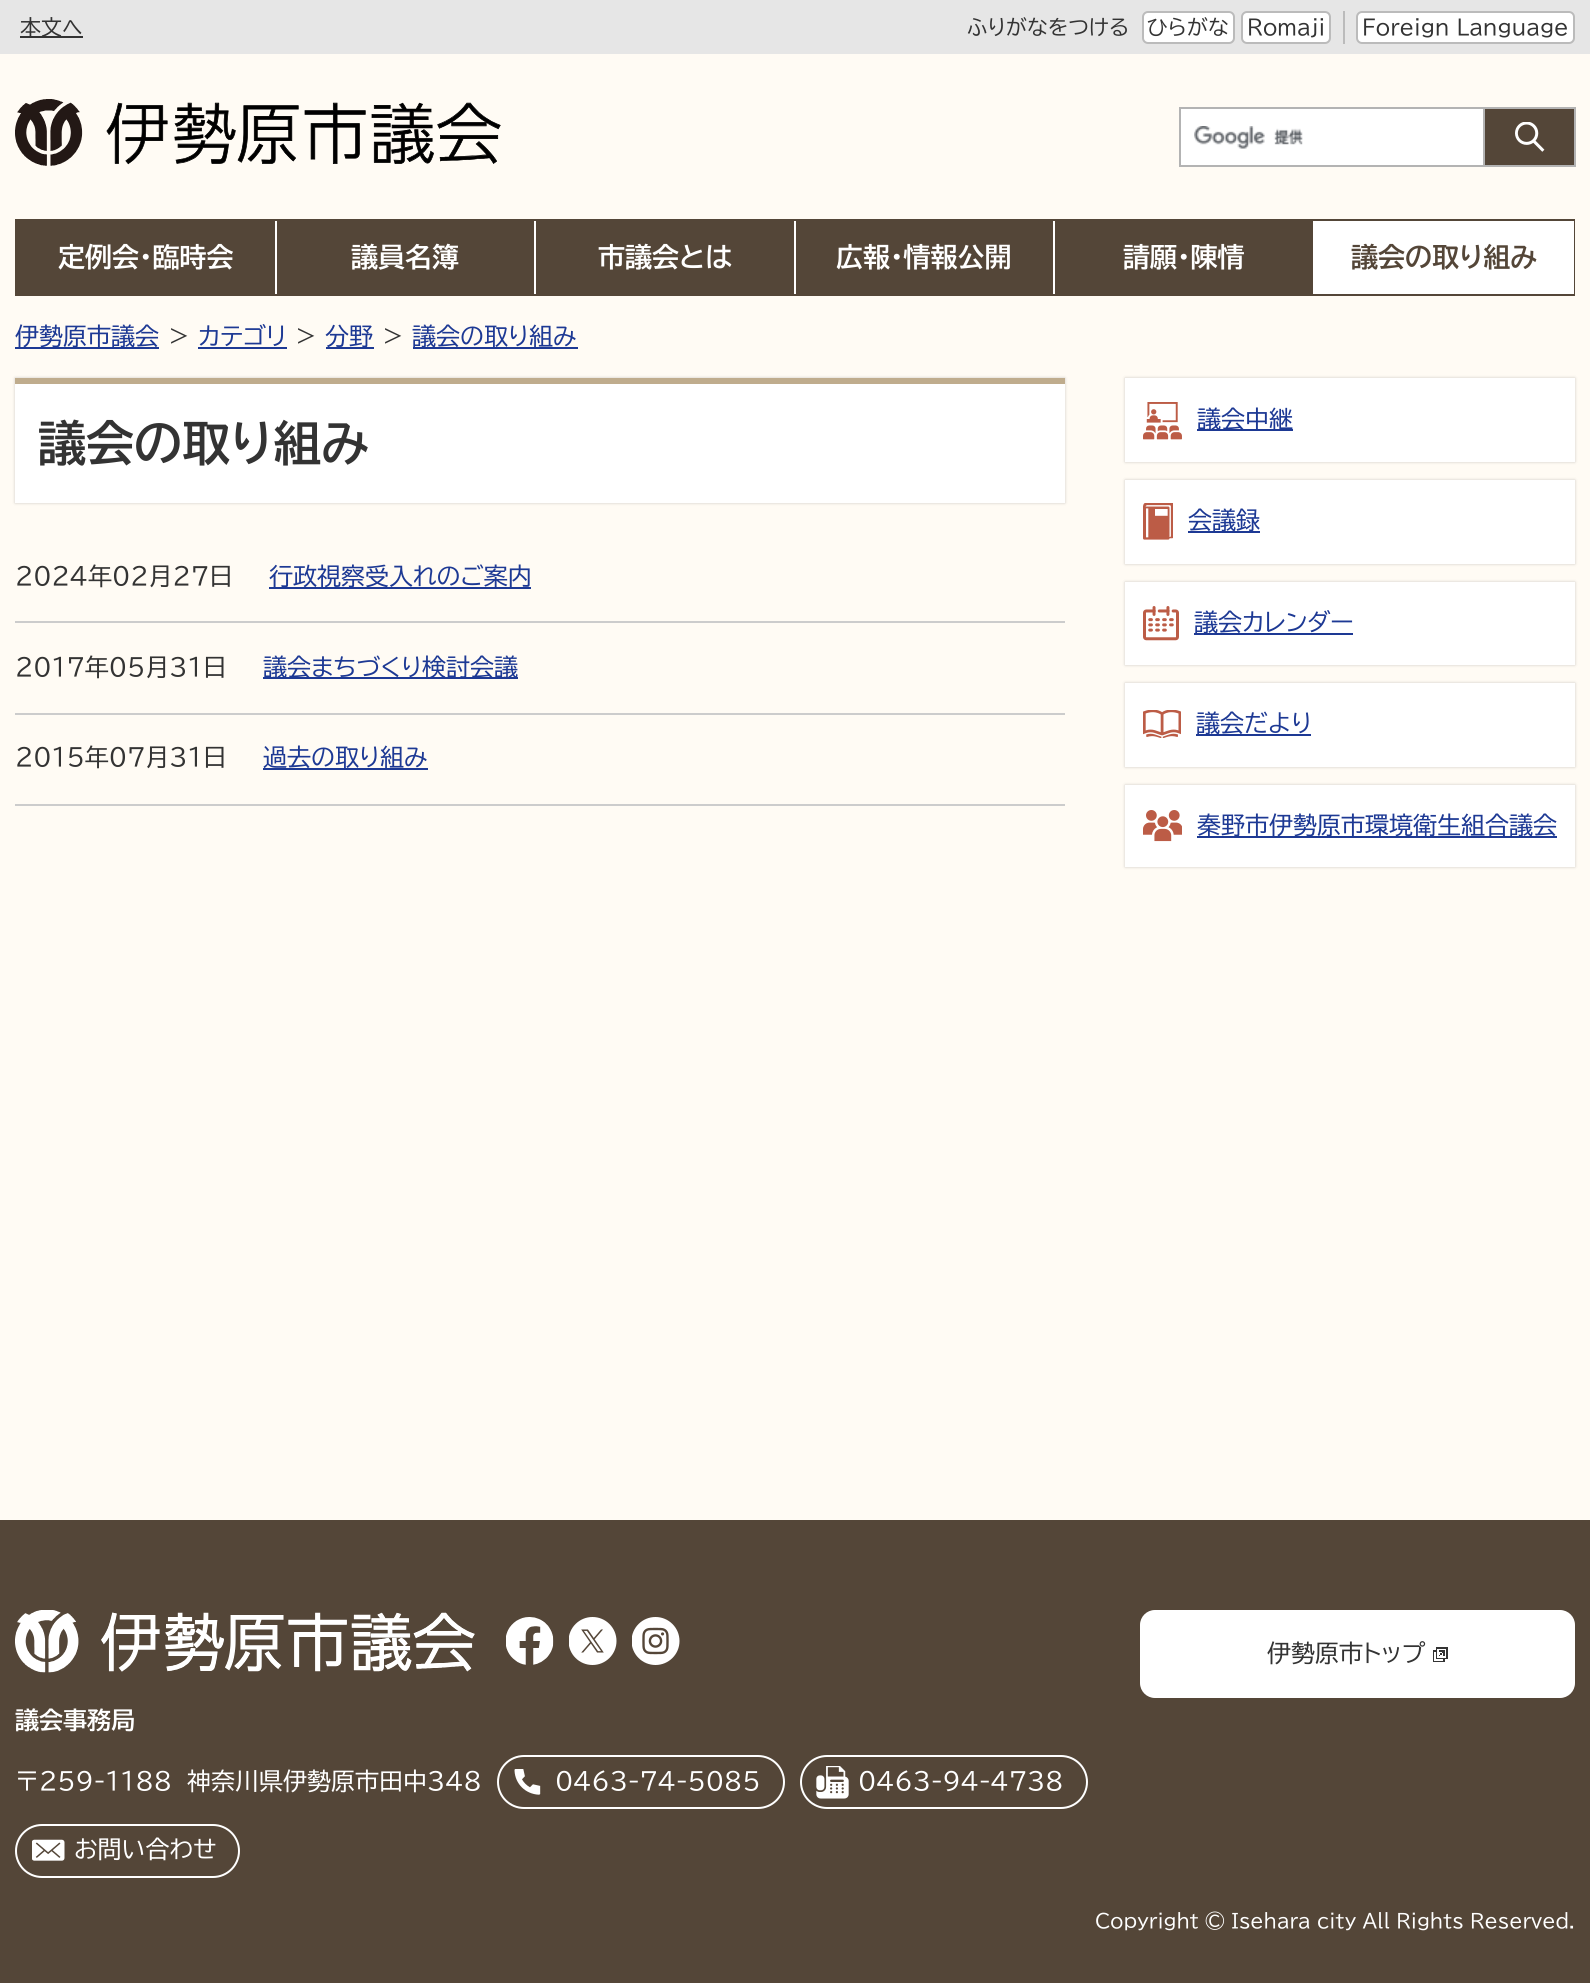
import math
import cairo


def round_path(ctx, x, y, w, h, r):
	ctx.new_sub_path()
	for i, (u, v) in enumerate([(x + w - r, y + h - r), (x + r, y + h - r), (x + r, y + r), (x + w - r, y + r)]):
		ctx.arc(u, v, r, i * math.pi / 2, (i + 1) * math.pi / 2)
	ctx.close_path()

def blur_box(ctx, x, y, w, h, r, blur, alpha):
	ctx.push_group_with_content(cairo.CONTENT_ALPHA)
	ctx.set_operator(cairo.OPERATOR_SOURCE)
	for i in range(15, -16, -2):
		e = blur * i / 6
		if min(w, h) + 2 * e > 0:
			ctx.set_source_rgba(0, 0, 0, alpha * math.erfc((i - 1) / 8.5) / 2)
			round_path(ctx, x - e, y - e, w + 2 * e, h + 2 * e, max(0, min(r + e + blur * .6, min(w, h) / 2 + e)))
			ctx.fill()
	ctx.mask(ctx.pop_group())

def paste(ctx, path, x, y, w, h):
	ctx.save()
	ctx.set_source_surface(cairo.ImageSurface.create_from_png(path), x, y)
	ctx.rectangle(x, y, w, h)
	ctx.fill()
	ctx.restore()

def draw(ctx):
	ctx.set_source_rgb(1, 0.984, 0.957)
	ctx.paint()
	ctx.set_source_rgb(0.902, 0.902, 0.902)
	ctx.rectangle(0, 0, 1590, 54)
	ctx.fill()
	ctx.set_source_rgb(0.2, 0.2, 0.2)
	ctx.rectangle(20, 36, 63, 2)
	ctx.fill()
	ctx.select_font_face('BIZ UDPGothic')
	ctx.set_font_size(21)
	ctx.move_to(20, 35)
	ctx.show_text('本文へ')
	ctx.move_to(967, 35)
	ctx.show_text('ふりがなをつける')
	ctx.set_source_rgb(1, 1, 1)
	round_path(ctx, 1143, 12, 91, 31, 5)
	ctx.fill_preserve()
	ctx.set_source_rgb(0.733, 0.733, 0.733)
	ctx.stroke()
	ctx.set_source_rgb(0.2, 0.2, 0.2)
	ctx.move_to(1147, 35)
	ctx.show_text('ひらがな')
	ctx.set_source_rgb(1, 1, 1)
	round_path(ctx, 1242, 12, 88, 31, 5)
	ctx.fill_preserve()
	ctx.set_source_rgb(0.733, 0.733, 0.733)
	ctx.stroke()
	ctx.set_source_rgb(0.2, 0.2, 0.2)
	ctx.move_to(1247, 35)
	ctx.show_text('Romaji')
	ctx.set_source_rgb(0.733, 0.733, 0.733)
	ctx.rectangle(1343, 11, 2, 33)
	ctx.fill()
	ctx.set_source_rgb(1, 1, 1)
	round_path(ctx, 1357, 12, 217, 31, 5)
	ctx.fill_preserve()
	ctx.set_source_rgb(0.733, 0.733, 0.733)
	ctx.stroke()
	ctx.set_source_rgb(0.2, 0.2, 0.2)
	ctx.move_to(1362, 35)
	ctx.show_text('Foreign Language')
	paste(ctx, 'media/1.png', 15, 99, 486, 67)
	ctx.set_source_rgb(1, 1, 1)
	ctx.rectangle(1181, 109, 302, 56)
	ctx.fill()
	paste(ctx, 'media/2.png', 1194, 126, 109, 23)
	ctx.rectangle(1180, 108, 304, 58)
	ctx.set_source_rgb(0.702, 0.702, 0.702)
	ctx.stroke()
	ctx.set_source_rgb(0.329, 0.275, 0.22)
	ctx.rectangle(1485, 109, 89, 56)
	ctx.fill()
	paste(ctx, 'media/3.png', 1515, 122, 30, 30)
	ctx.set_source_rgb(0.702, 0.702, 0.702)
	ctx.rectangle(1485, 107, 90, 2)
	ctx.rectangle(1574, 107, 2, 60)
	ctx.rectangle(1485, 165, 90, 2)
	ctx.fill()
	ctx.set_source_rgb(0.329, 0.275, 0.22)
	ctx.rectangle(15, 219, 1560, 77)
	ctx.fill()
	ctx.set_source_rgb(1, 1, 1)
	ctx.rectangle(275, 221, 2, 73)
	ctx.fill()
	ctx.select_font_face('BIZ UDPGothic', cairo.FONT_SLANT_NORMAL, cairo.FONT_WEIGHT_BOLD)
	ctx.set_font_size(27)
	ctx.move_to(58, 267)
	ctx.show_text('定例会・臨時会')
	ctx.rectangle(534, 221, 2, 73)
	ctx.fill()
	ctx.move_to(351, 267)
	ctx.show_text('議員名簿')
	ctx.rectangle(794, 221, 2, 73)
	ctx.fill()
	ctx.move_to(598, 267)
	ctx.show_text('市議会とは')
	ctx.rectangle(1053, 221, 2, 73)
	ctx.fill()
	ctx.move_to(836, 267)
	ctx.show_text('広報・情報公開')
	ctx.rectangle(1313, 221, 261, 73)
	ctx.fill()
	ctx.move_to(1123, 267)
	ctx.show_text('請願・陳情')
	ctx.set_source_rgb(0.329, 0.275, 0.22)
	ctx.move_to(1351, 267)
	ctx.show_text('議会の取り組み')
	ctx.set_source_rgb(0.114, 0.224, 0.58)
	ctx.rectangle(15, 347, 144, 2)
	ctx.fill()
	ctx.select_font_face('BIZ UDPGothic')
	ctx.set_font_size(24)
	ctx.move_to(15, 345)
	ctx.show_text('伊勢原市議会')
	ctx.set_source_rgb(0.2, 0.2, 0.2)
	ctx.move_to(167, 345)
	ctx.show_text('＞')
	ctx.set_source_rgb(0.114, 0.224, 0.58)
	ctx.move_to(198, 345)
	ctx.show_text('カテゴリ')
	ctx.rectangle(198, 347, 89, 2)
	ctx.fill()
	ctx.set_source_rgb(0.2, 0.2, 0.2)
	ctx.move_to(294, 345)
	ctx.show_text('＞')
	ctx.set_source_rgb(0.114, 0.224, 0.58)
	ctx.rectangle(326, 347, 48, 2)
	ctx.fill()
	ctx.move_to(325, 345)
	ctx.show_text('分野')
	ctx.set_source_rgb(0.2, 0.2, 0.2)
	ctx.move_to(381, 345)
	ctx.show_text('＞')
	ctx.set_source_rgb(0.114, 0.224, 0.58)
	ctx.rectangle(413, 347, 165, 2)
	ctx.fill()
	ctx.move_to(412, 345)
	ctx.show_text('議会の取り組み')
	ctx.set_source_rgb(0, 0, 0)
	blur_box(ctx, 15, 378, 1050, 125, 0, 1.5, 0.2)
	ctx.set_source_rgb(1, 1, 1)
	ctx.rectangle(15, 384, 1050, 119)
	ctx.fill()
	ctx.set_source_rgb(0.749, 0.675, 0.553)
	ctx.rectangle(15, 378, 1050, 6)
	ctx.fill()
	ctx.select_font_face('BIZ UDPGothic', cairo.FONT_SLANT_NORMAL, cairo.FONT_WEIGHT_BOLD)
	ctx.set_font_size(48)
	ctx.set_source_rgb(0.2, 0.2, 0.2)
	ctx.move_to(38, 461)
	ctx.show_text('議会の取り組み')
	ctx.set_source_rgb(0.8, 0.8, 0.8)
	ctx.rectangle(15, 621, 1050, 2)
	ctx.fill()
	ctx.select_font_face('BIZ UDPGothic')
	ctx.set_font_size(24)
	ctx.set_source_rgb(0.2, 0.2, 0.2)
	ctx.move_to(15, 585)
	ctx.show_text('2024年02月27日')
	ctx.set_source_rgb(0.114, 0.224, 0.58)
	ctx.rectangle(269, 587, 262, 2)
	ctx.fill()
	ctx.move_to(269, 585)
	ctx.show_text('行政視察受入れのご案内')
	ctx.set_source_rgb(0.8, 0.8, 0.8)
	ctx.rectangle(15, 713, 1050, 2)
	ctx.fill()
	ctx.set_source_rgb(0.2, 0.2, 0.2)
	ctx.move_to(15, 676)
	ctx.show_text('2017年05月31日')
	ctx.set_source_rgb(0.114, 0.224, 0.58)
	ctx.rectangle(263, 677, 255, 2)
	ctx.fill()
	ctx.move_to(263, 676)
	ctx.show_text('議会まちづくり検討会議')
	ctx.set_source_rgb(0.8, 0.8, 0.8)
	ctx.rectangle(15, 804, 1050, 2)
	ctx.fill()
	ctx.set_source_rgb(0.2, 0.2, 0.2)
	ctx.move_to(15, 766)
	ctx.show_text('2015年07月31日')
	ctx.set_source_rgb(0.114, 0.224, 0.58)
	ctx.rectangle(263, 768, 165, 2)
	ctx.fill()
	ctx.move_to(263, 766)
	ctx.show_text('過去の取り組み')
	ctx.set_source_rgb(0, 0, 0)
	blur_box(ctx, 1125, 378, 450, 84, 0, 1.5, 0.2)
	ctx.set_source_rgb(1, 1, 1)
	ctx.rectangle(1125, 378, 450, 84)
	ctx.fill()
	paste(ctx, 'media/4.png', 1143, 402, 39, 38)
	ctx.set_source_rgb(0.114, 0.224, 0.58)
	ctx.rectangle(1197, 429, 96, 2)
	ctx.fill()
	ctx.move_to(1197, 428)
	ctx.show_text('議会中継')
	ctx.set_source_rgb(0, 0, 0)
	blur_box(ctx, 1125, 480, 450, 84, 0, 1.5, 0.2)
	ctx.set_source_rgb(1, 1, 1)
	ctx.rectangle(1125, 480, 450, 84)
	ctx.fill()
	paste(ctx, 'media/5.png', 1143, 503, 30, 37)
	ctx.set_source_rgb(0.114, 0.224, 0.58)
	ctx.rectangle(1188, 531, 72, 2)
	ctx.fill()
	ctx.move_to(1188, 529)
	ctx.show_text('会議録')
	ctx.set_source_rgb(0, 0, 0)
	blur_box(ctx, 1125, 582, 450, 83, 0, 1.5, 0.2)
	ctx.set_source_rgb(1, 1, 1)
	ctx.rectangle(1125, 582, 450, 83)
	ctx.fill()
	paste(ctx, 'media/6.png', 1143, 606, 36, 35)
	ctx.set_source_rgb(0.114, 0.224, 0.58)
	ctx.rectangle(1194, 633, 159, 2)
	ctx.fill()
	ctx.move_to(1194, 631)
	ctx.show_text('議会カレンダー')
	ctx.set_source_rgb(0, 0, 0)
	blur_box(ctx, 1125, 683, 450, 84, 0, 1.5, 0.2)
	ctx.set_source_rgb(1, 1, 1)
	ctx.rectangle(1125, 683, 450, 84)
	ctx.fill()
	paste(ctx, 'media/7.png', 1143, 710, 38, 28)
	ctx.set_source_rgb(0.114, 0.224, 0.58)
	ctx.rectangle(1196, 734, 115, 2)
	ctx.fill()
	ctx.move_to(1196, 732)
	ctx.show_text('議会だより')
	ctx.set_source_rgb(0, 0, 0)
	blur_box(ctx, 1125, 785, 450, 82, 0, 1.5, 0.2)
	ctx.set_source_rgb(1, 1, 1)
	ctx.rectangle(1125, 785, 450, 82)
	ctx.fill()
	paste(ctx, 'media/8.png', 1143, 810, 39, 32)
	ctx.set_source_rgb(0.114, 0.224, 0.58)
	ctx.rectangle(1197, 836, 360, 2)
	ctx.fill()
	ctx.move_to(1197, 834)
	ctx.show_text('秦野市伊勢原市環境衛生組合議会')
	ctx.set_source_rgb(0.329, 0.275, 0.22)
	ctx.rectangle(0, 1520, 1590, 463)
	ctx.fill()
	ctx.set_source_rgb(1, 1, 1)
	round_path(ctx, 1140, 1610, 435, 88, 15)
	ctx.fill()
	ctx.set_source_rgb(0.2, 0.2, 0.2)
	ctx.move_to(1267, 1662)
	ctx.show_text('伊勢原市トップ')
	paste(ctx, 'media/9.png', 1433, 1647, 15, 15)
	paste(ctx, 'media/10.png', 15, 1610, 460, 63)
	paste(ctx, 'media/11.png', 506, 1617, 48, 48)
	paste(ctx, 'media/12.png', 569, 1617, 48, 48)
	paste(ctx, 'media/13.png', 632, 1617, 48, 48)
	ctx.select_font_face('BIZ UDPGothic', cairo.FONT_SLANT_NORMAL, cairo.FONT_WEIGHT_BOLD)
	ctx.set_source_rgb(1, 1, 1)
	ctx.move_to(15, 1729)
	ctx.show_text('議会事務局')
	ctx.select_font_face('BIZ UDPGothic')
	ctx.move_to(15, 1790)
	ctx.show_text('〒259-1188')
	ctx.move_to(187, 1790)
	ctx.show_text('神奈川県伊勢原市田中348')
	paste(ctx, 'media/14.png', 514, 1769, 27, 26)
	round_path(ctx, 498, 1756, 286, 52, 26)
	ctx.stroke()
	ctx.move_to(555, 1790)
	ctx.show_text('0463-74-5085')
	paste(ctx, 'media/15.png', 816, 1766, 33, 33)
	round_path(ctx, 801, 1756, 286, 52, 26)
	ctx.stroke()
	ctx.move_to(858, 1790)
	ctx.show_text('0463-94-4738')
	paste(ctx, 'media/16.png', 32, 1839, 33, 22)
	round_path(ctx, 16, 1825, 223, 52, 26)
	ctx.stroke()
	ctx.move_to(74, 1858)
	ctx.show_text('お問い合わせ')
	ctx.set_font_size(19.2)
	ctx.move_to(1095, 1928)
	ctx.show_text('Copyright © Isehara city All Rights Reserved.')


surface = cairo.ImageSurface(cairo.FORMAT_RGB24, 1590, 1983)
ctx = cairo.Context(surface)
options = cairo.FontOptions()
options.set_hint_metrics(cairo.HINT_METRICS_OFF)
options.set_hint_style(cairo.HINT_STYLE_NONE)
ctx.set_font_options(options)
ctx.set_miter_limit(4)
draw(ctx)
surface.write_to_png('image.png')
